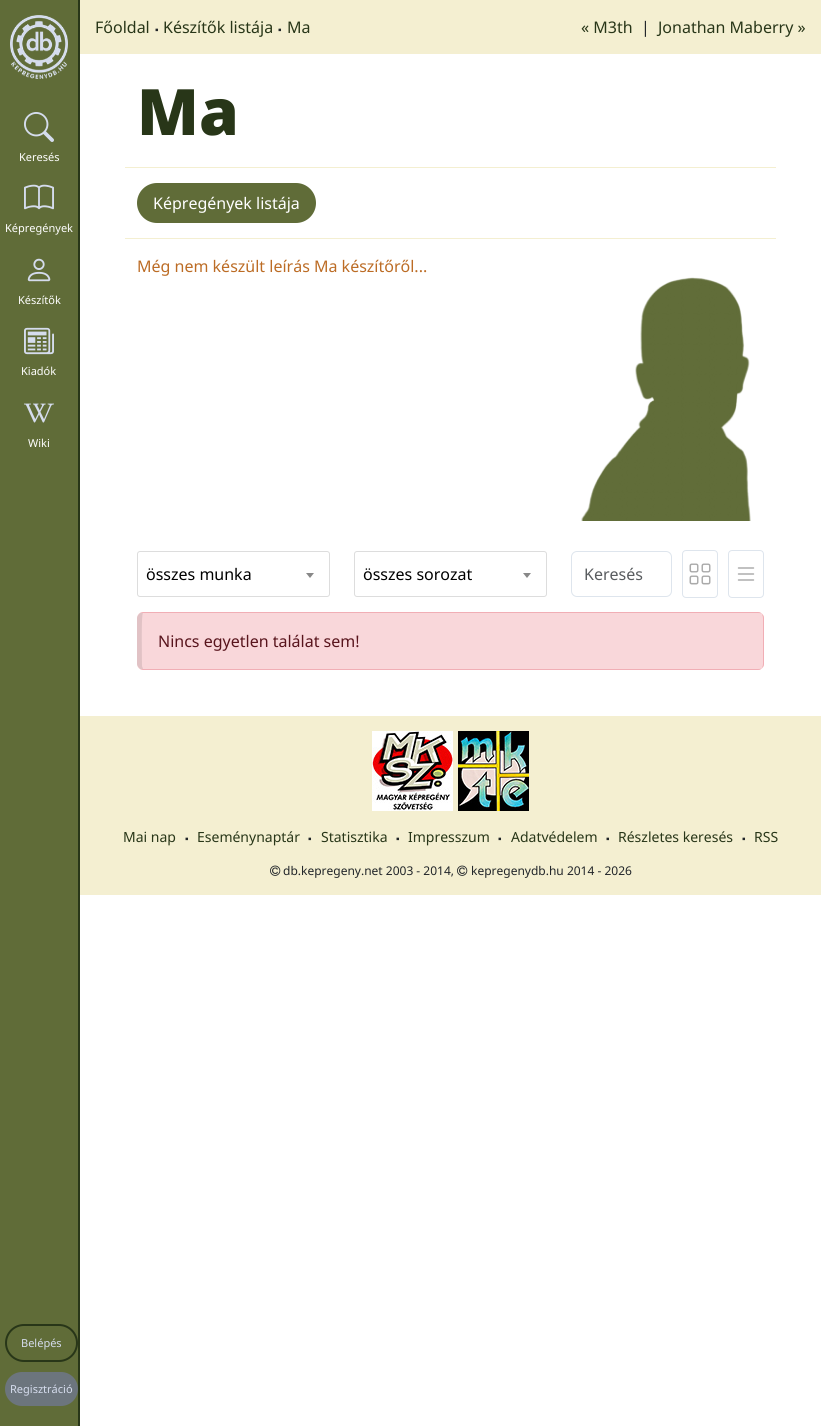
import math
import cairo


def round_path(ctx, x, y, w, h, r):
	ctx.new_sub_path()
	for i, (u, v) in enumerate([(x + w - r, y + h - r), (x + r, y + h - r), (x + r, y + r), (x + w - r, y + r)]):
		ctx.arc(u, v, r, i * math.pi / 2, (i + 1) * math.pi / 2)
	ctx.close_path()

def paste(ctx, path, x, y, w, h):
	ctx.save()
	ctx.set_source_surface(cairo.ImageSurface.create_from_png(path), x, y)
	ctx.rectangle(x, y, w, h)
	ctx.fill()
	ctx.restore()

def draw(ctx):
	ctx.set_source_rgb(1, 1, 1)
	ctx.paint()
	ctx.set_source_rgb(0.376, 0.424, 0.22)
	ctx.rectangle(0, 0, 78, 1426)
	ctx.fill()
	ctx.set_source_rgb(0.157, 0.212, 0.094)
	ctx.rectangle(78, 0, 2, 1426)
	ctx.fill()
	paste(ctx, 'media/1.png', 10, 15, 58, 64)
	paste(ctx, 'media/2.png', 24, 112, 30, 30)
	ctx.select_font_face('Noto Sans')
	ctx.set_font_size(11)
	ctx.set_source_rgb(1, 1, 1)
	ctx.move_to(19, 161)
	ctx.show_text('Keresés')
	paste(ctx, 'media/3.png', 24, 184, 30, 26)
	ctx.move_to(5, 232)
	ctx.show_text('Képregények')
	paste(ctx, 'media/4.png', 27, 258, 24, 24)
	ctx.move_to(18, 304)
	ctx.show_text('Készítők')
	paste(ctx, 'media/5.png', 24, 327, 30, 28)
	ctx.move_to(21, 375)
	ctx.show_text('Kiadók')
	paste(ctx, 'media/6.png', 24, 403, 30, 20)
	ctx.move_to(28, 447)
	ctx.show_text('Wiki')
	round_path(ctx, 6, 1325, 71, 36, 18)
	ctx.set_source_rgb(0.157, 0.212, 0.094)
	ctx.stroke()
	ctx.set_source_rgb(0.835, 0.863, 0.929)
	ctx.move_to(21, 1347)
	ctx.show_text('Belépés')
	ctx.set_source_rgb(0.424, 0.459, 0.49)
	round_path(ctx, 5, 1372, 73, 34, 17)
	ctx.fill()
	ctx.set_source_rgb(0.835, 0.863, 0.929)
	ctx.move_to(10, 1393)
	ctx.show_text('Regisztráció')
	ctx.set_source_rgb(0.957, 0.937, 0.82)
	ctx.rectangle(80, 0, 741, 54)
	ctx.fill()
	ctx.set_font_size(16)
	ctx.set_source_rgb(0.157, 0.212, 0.094)
	ctx.move_to(95, 33)
	ctx.show_text('Főoldal')
	ctx.select_font_face('Liberation Sans')
	ctx.set_font_size(10)
	ctx.set_source_rgb(0.129, 0.145, 0.161)
	ctx.move_to(155, 33)
	ctx.show_text('▪')
	ctx.select_font_face('Noto Sans')
	ctx.set_font_size(16)
	ctx.set_source_rgb(0.157, 0.212, 0.094)
	ctx.move_to(163, 33)
	ctx.show_text('Készítők listája')
	ctx.select_font_face('Liberation Sans')
	ctx.set_font_size(10)
	ctx.set_source_rgb(0.129, 0.145, 0.161)
	ctx.move_to(278, 33)
	ctx.show_text('▪')
	ctx.select_font_face('Noto Sans')
	ctx.set_font_size(16)
	ctx.set_source_rgb(0.157, 0.212, 0.094)
	ctx.move_to(287, 33)
	ctx.show_text('Ma')
	ctx.move_to(581, 33)
	ctx.show_text('« M3th')
	ctx.set_source_rgb(0.129, 0.145, 0.161)
	ctx.move_to(641, 33)
	ctx.show_text('|')
	ctx.set_source_rgb(0.157, 0.212, 0.094)
	ctx.move_to(658, 33)
	ctx.show_text('Jonathan Maberry »')
	ctx.select_font_face('Open Sans ExtraBold')
	ctx.set_font_size(64)
	ctx.move_to(137, 135)
	ctx.show_text('Ma')
	ctx.set_source_rgb(0.957, 0.937, 0.82)
	ctx.rectangle(125, 167, 651, 1)
	ctx.fill()
	ctx.rectangle(125, 238, 651, 1)
	ctx.fill()
	ctx.set_source_rgb(0.376, 0.424, 0.22)
	round_path(ctx, 137, 183, 179, 40, 20)
	ctx.fill()
	ctx.select_font_face('Noto Sans')
	ctx.set_font_size(16)
	ctx.set_source_rgb(1, 1, 1)
	ctx.move_to(153, 209)
	ctx.show_text('Képregények listája')
	ctx.set_source_rgb(0.737, 0.424, 0.145)
	ctx.move_to(137, 272)
	ctx.show_text('Még nem készült leírás Ma készítőről...')
	paste(ctx, 'media/7.png', 581, 277, 170, 244)
	round_path(ctx, 137.5, 551.5, 192, 45, 2.5)
	ctx.set_source_rgb(0.867, 0.867, 0.867)
	ctx.set_line_width(1)
	ctx.stroke()
	ctx.set_source_rgb(0, 0, 0)
	ctx.move_to(146, 580)
	ctx.show_text('összes munka')
	ctx.set_source_rgb(0.533, 0.533, 0.533)
	ctx.new_path()
	ctx.move_to(306, 573)
	ctx.line_to(314, 573)
	ctx.line_to(310, 578)
	ctx.close_path()
	ctx.fill()
	round_path(ctx, 354.5, 551.5, 192, 45, 2.5)
	ctx.set_source_rgb(0.867, 0.867, 0.867)
	ctx.stroke()
	ctx.set_source_rgb(0, 0, 0)
	ctx.move_to(363, 580)
	ctx.show_text('összes sorozat')
	ctx.set_source_rgb(0.533, 0.533, 0.533)
	ctx.new_path()
	ctx.move_to(523, 573)
	ctx.line_to(531, 573)
	ctx.line_to(527, 578)
	ctx.close_path()
	ctx.fill()
	round_path(ctx, 571.5, 551.5, 100, 45, 5.5)
	ctx.set_source_rgb(0.871, 0.898, 0.929)
	ctx.stroke()
	ctx.set_source_rgb(0.349, 0.361, 0.373)
	ctx.move_to(584, 580)
	ctx.show_text('Keresés')
	round_path(ctx, 682.5, 550.5, 35, 47, 3.5)
	ctx.set_source_rgb(0.871, 0.898, 0.929)
	ctx.stroke()
	paste(ctx, 'media/8.png', 689, 563, 22, 22)
	round_path(ctx, 728.5, 550.5, 35, 47, 3.5)
	ctx.stroke()
	paste(ctx, 'media/9.png', 737, 567, 18, 14)
	ctx.set_source_rgb(0.973, 0.843, 0.855)
	round_path(ctx, 137, 612, 627, 58, 6)
	ctx.fill()
	ctx.set_source_rgb(0.945, 0.682, 0.71)
	ctx.new_path()
	ctx.move_to(143, 612)
	ctx.line_to(140, 613)
	ctx.line_to(143, 613)
	ctx.line_to(758, 613)
	ctx.curve_to(759, 613, 761, 613, 762, 614)
	ctx.curve_to(761, 613, 760, 612, 758, 612)
	ctx.close_path()
	ctx.fill()
	ctx.new_path()
	ctx.move_to(764, 664)
	ctx.line_to(764, 618)
	ctx.curve_to(764, 616, 763, 615, 762, 614)
	ctx.curve_to(762, 615, 763, 616, 763, 618)
	ctx.line_to(763, 664)
	ctx.curve_to(763, 666, 762, 667, 762, 668)
	ctx.curve_to(763, 667, 764, 666, 764, 664)
	ctx.close_path()
	ctx.fill()
	ctx.new_path()
	ctx.move_to(143, 670)
	ctx.line_to(758, 670)
	ctx.curve_to(760, 670, 761, 669, 762, 668)
	ctx.curve_to(761, 669, 759, 669, 758, 669)
	ctx.line_to(143, 669)
	ctx.line_to(140, 669)
	ctx.close_path()
	ctx.fill()
	ctx.set_source_rgba(0, 0, 0, 0.1)
	ctx.new_path()
	ctx.move_to(137, 618)
	ctx.line_to(137, 664)
	ctx.curve_to(137, 666, 139, 668, 140, 669)
	ctx.line_to(143, 669)
	ctx.line_to(142, 666)
	ctx.curve_to(142, 660, 141, 614, 143, 613)
	ctx.line_to(140, 613)
	ctx.curve_to(139, 614, 137, 616, 137, 618)
	ctx.close_path()
	ctx.fill()
	ctx.set_source_rgb(0.345, 0.082, 0.11)
	ctx.move_to(158, 647)
	ctx.show_text('Nincs egyetlen találat sem!')
	ctx.set_source_rgb(0.957, 0.937, 0.82)
	ctx.rectangle(80, 716, 741, 179)
	ctx.fill()
	paste(ctx, 'media/10.png', 372, 731, 81, 80)
	paste(ctx, 'media/11.png', 458, 731, 71, 80)
	ctx.set_font_size(14)
	ctx.set_source_rgb(0.157, 0.212, 0.094)
	ctx.move_to(123, 842)
	ctx.show_text('Mai nap')
	ctx.select_font_face('Liberation Sans')
	ctx.set_font_size(10)
	ctx.set_source_rgb(0.129, 0.145, 0.161)
	ctx.move_to(185, 842)
	ctx.show_text('▪')
	ctx.select_font_face('Noto Sans')
	ctx.set_font_size(14)
	ctx.set_source_rgb(0.157, 0.212, 0.094)
	ctx.move_to(197, 842)
	ctx.show_text('Eseménynaptár')
	ctx.select_font_face('Liberation Sans')
	ctx.set_font_size(10)
	ctx.set_source_rgb(0.129, 0.145, 0.161)
	ctx.move_to(308, 842)
	ctx.show_text('▪')
	ctx.select_font_face('Noto Sans')
	ctx.set_font_size(14)
	ctx.set_source_rgb(0.157, 0.212, 0.094)
	ctx.move_to(321, 842)
	ctx.show_text('Statisztika')
	ctx.select_font_face('Liberation Sans')
	ctx.set_font_size(10)
	ctx.set_source_rgb(0.129, 0.145, 0.161)
	ctx.move_to(396, 842)
	ctx.show_text('▪')
	ctx.select_font_face('Noto Sans')
	ctx.set_font_size(14)
	ctx.set_source_rgb(0.157, 0.212, 0.094)
	ctx.move_to(408, 842)
	ctx.show_text('Impresszum')
	ctx.select_font_face('Liberation Sans')
	ctx.set_font_size(10)
	ctx.set_source_rgb(0.129, 0.145, 0.161)
	ctx.move_to(498, 842)
	ctx.show_text('▪')
	ctx.select_font_face('Noto Sans')
	ctx.set_font_size(14)
	ctx.set_source_rgb(0.157, 0.212, 0.094)
	ctx.move_to(511, 842)
	ctx.show_text('Adatvédelem')
	ctx.select_font_face('Liberation Sans')
	ctx.set_font_size(10)
	ctx.set_source_rgb(0.129, 0.145, 0.161)
	ctx.move_to(606, 842)
	ctx.show_text('▪')
	ctx.select_font_face('Noto Sans')
	ctx.set_font_size(14)
	ctx.set_source_rgb(0.157, 0.212, 0.094)
	ctx.move_to(618, 842)
	ctx.show_text('Részletes keresés')
	ctx.select_font_face('Liberation Sans')
	ctx.set_font_size(10)
	ctx.set_source_rgb(0.129, 0.145, 0.161)
	ctx.move_to(742, 842)
	ctx.show_text('▪')
	ctx.select_font_face('Noto Sans')
	ctx.set_font_size(14)
	ctx.set_source_rgb(0.157, 0.212, 0.094)
	ctx.move_to(754, 842)
	ctx.show_text('RSS')
	paste(ctx, 'media/12.png', 270, 865, 11, 11)
	ctx.set_font_size(12)
	ctx.set_source_rgb(0.129, 0.145, 0.161)
	ctx.move_to(283, 875)
	ctx.show_text('db.kepregeny.net 2003 - 2014,')
	paste(ctx, 'media/12.png', 457, 865, 11, 11)
	ctx.move_to(471, 875)
	ctx.show_text('kepregenydb.hu 2014 - 2026')


surface = cairo.ImageSurface(cairo.FORMAT_RGB24, 821, 1426)
ctx = cairo.Context(surface)
options = cairo.FontOptions()
options.set_hint_metrics(cairo.HINT_METRICS_OFF)
options.set_hint_style(cairo.HINT_STYLE_NONE)
ctx.set_font_options(options)
ctx.set_miter_limit(4)
draw(ctx)
surface.write_to_png('image.png')
